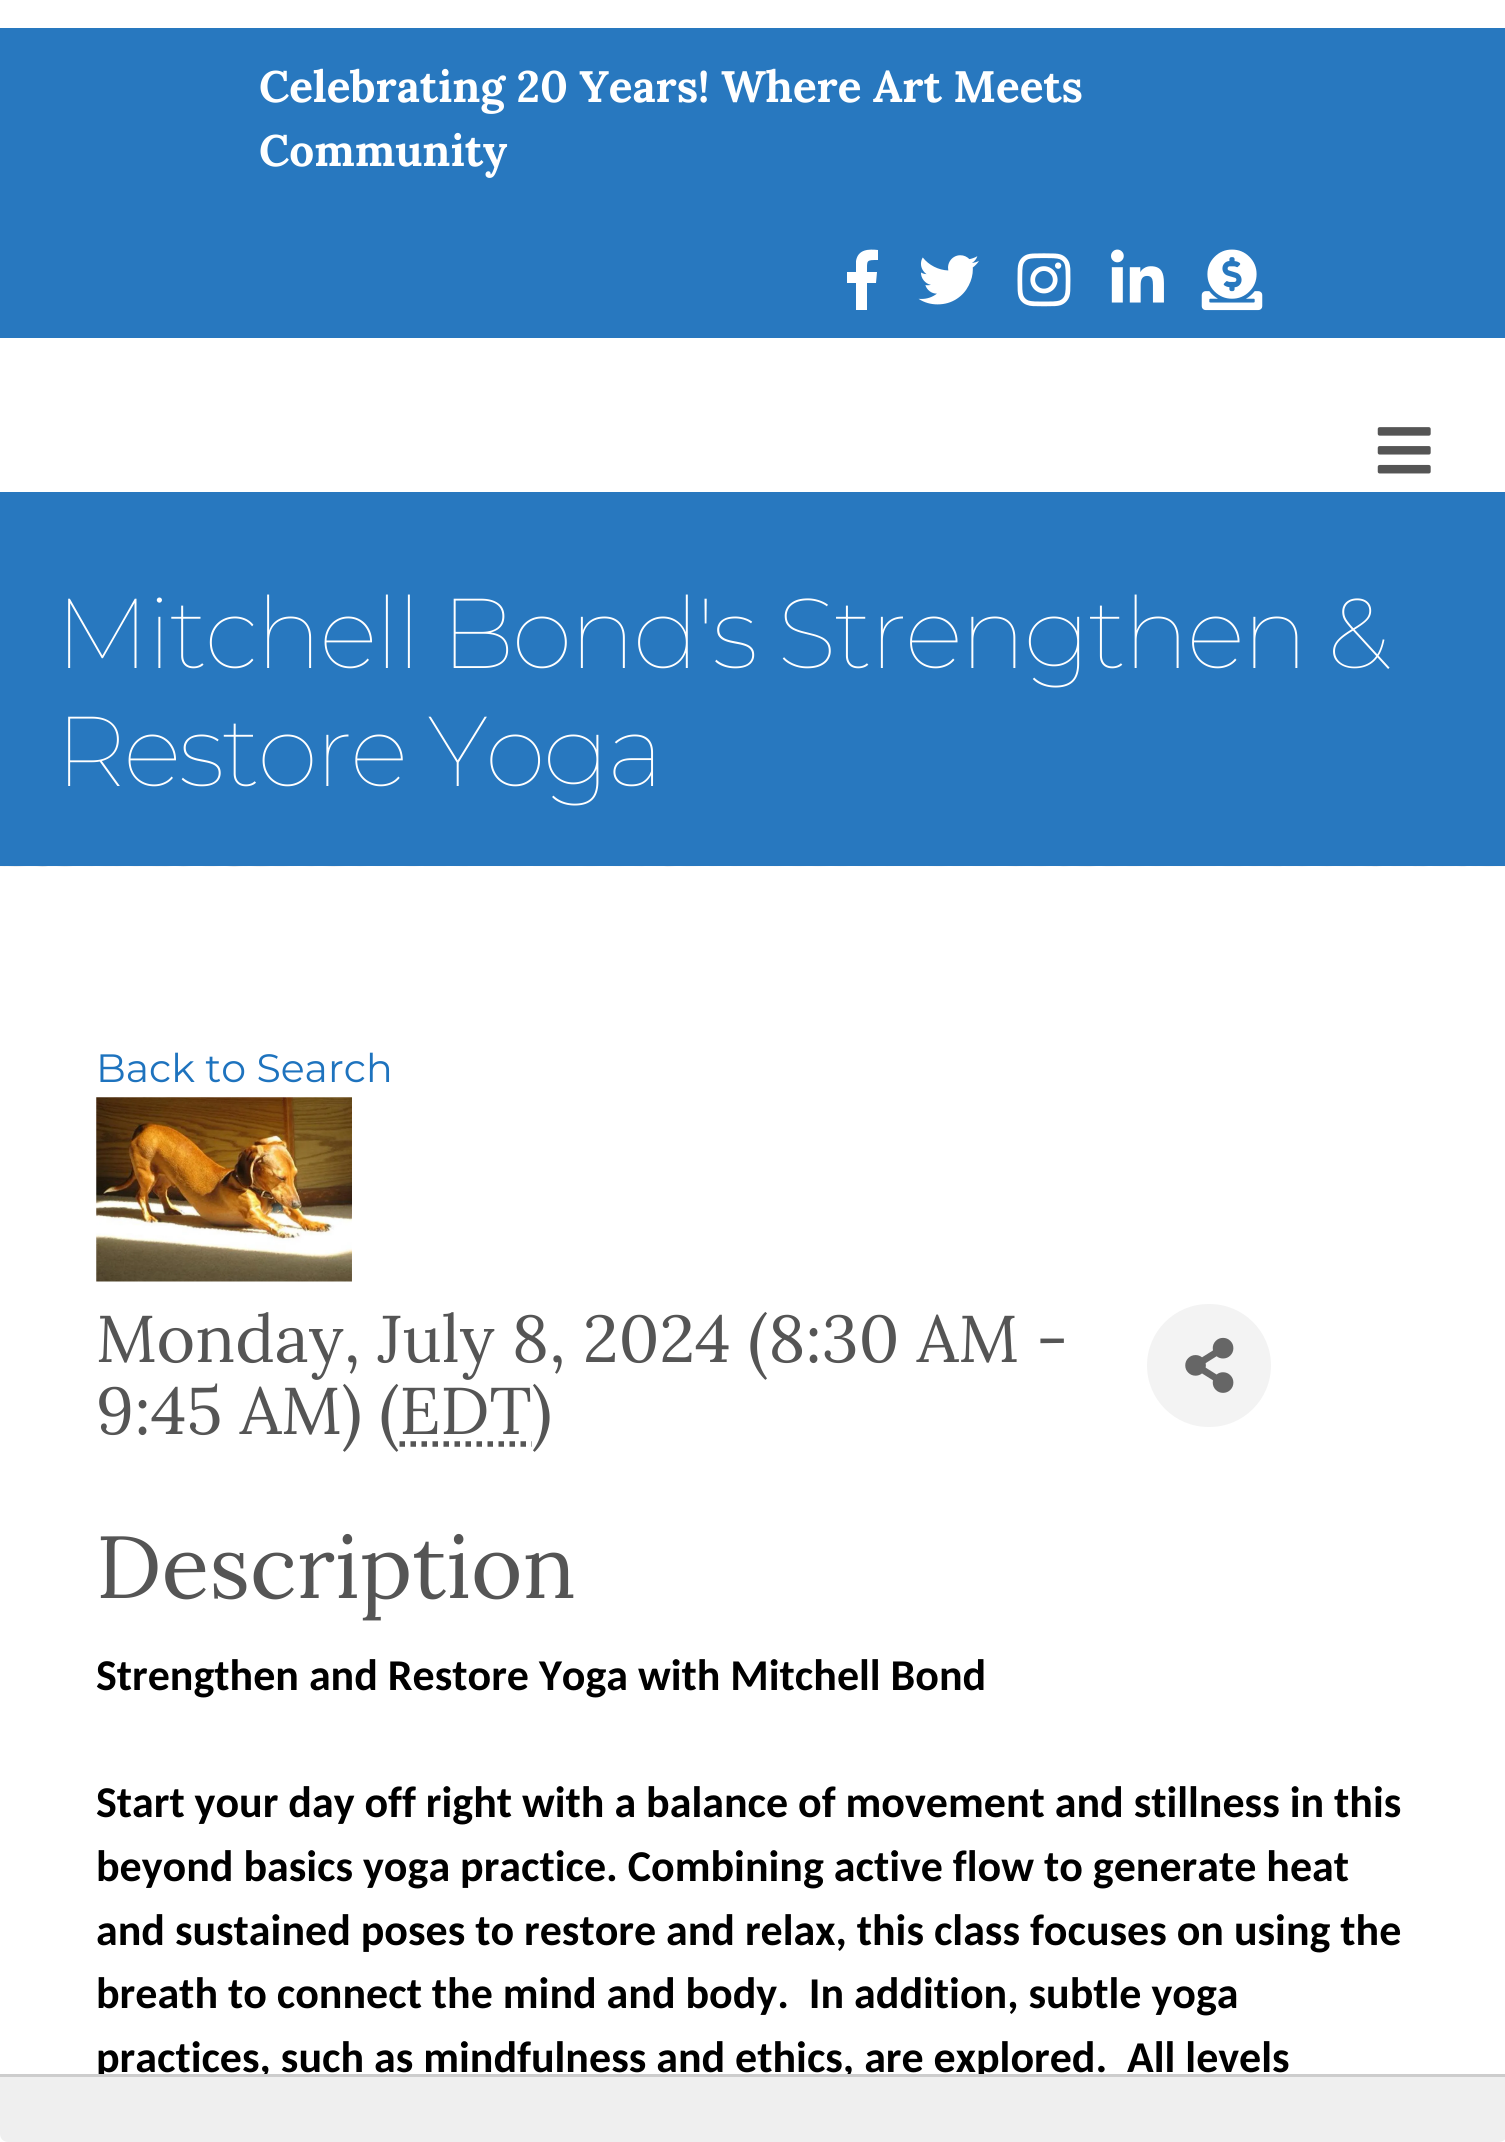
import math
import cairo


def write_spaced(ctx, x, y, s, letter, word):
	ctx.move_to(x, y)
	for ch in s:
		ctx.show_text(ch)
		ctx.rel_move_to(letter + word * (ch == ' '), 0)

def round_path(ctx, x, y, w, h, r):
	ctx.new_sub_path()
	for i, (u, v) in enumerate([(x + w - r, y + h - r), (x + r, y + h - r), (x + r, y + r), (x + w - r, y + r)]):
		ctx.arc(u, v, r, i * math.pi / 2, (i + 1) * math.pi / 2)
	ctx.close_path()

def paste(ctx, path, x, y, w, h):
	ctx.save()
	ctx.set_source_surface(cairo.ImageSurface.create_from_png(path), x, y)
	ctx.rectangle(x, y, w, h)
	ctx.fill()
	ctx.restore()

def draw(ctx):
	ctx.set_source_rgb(1, 1, 1)
	ctx.paint()
	ctx.set_source_rgb(0.157, 0.471, 0.749)
	ctx.rectangle(0, 28, 1505, 310)
	ctx.fill()
	ctx.select_font_face('Lora', cairo.FONT_SLANT_NORMAL, cairo.FONT_WEIGHT_BOLD)
	ctx.set_font_size(44)
	ctx.set_source_rgb(1, 1, 1)
	ctx.move_to(259, 102)
	ctx.show_text('Celebrating 20 Years! Where Art Meets')
	ctx.move_to(259, 166)
	ctx.show_text('Community')
	ctx.new_path()
	ctx.move_to(856, 310)
	ctx.line_to(856, 283)
	ctx.line_to(847, 283)
	ctx.line_to(847, 272)
	ctx.line_to(856, 272)
	ctx.line_to(856, 261)
	ctx.curve_to(858, 249, 869, 249, 878, 250)
	ctx.line_to(878, 260)
	ctx.curve_to(866, 260, 867, 260, 867, 272)
	ctx.line_to(877, 272)
	ctx.line_to(876, 283)
	ctx.line_to(867, 283)
	ctx.line_to(867, 310)
	ctx.close_path()
	ctx.fill()
	paste(ctx, 'media/1.png', 918, 255, 61, 50)
	paste(ctx, 'media/2.png', 1017, 253, 54, 54)
	paste(ctx, 'media/3.png', 1111, 249, 53, 54)
	paste(ctx, 'media/4.png', 1201, 249, 62, 62)
	paste(ctx, 'media/5.png', 1377, 427, 54, 47)
	paste(ctx, 'media/6.png', 0, 866, 1505, 1)
	ctx.set_source_rgb(0.157, 0.471, 0.749)
	ctx.rectangle(0, 492, 1505, 374)
	ctx.fill()
	ctx.select_font_face('Montserrat Thin')
	ctx.set_font_size(99)
	ctx.set_source_rgb(1, 1, 1)
	write_spaced(ctx, 55, 668, 'Mitchell Bond\'s Strengthen &', -2.75, 0)
	write_spaced(ctx, 55, 786, 'Restore Yoga', -2.75, 0)
	ctx.select_font_face('Montserrat')
	ctx.set_font_size(39.5)
	ctx.set_source_rgb(0.118, 0.451, 0.745)
	ctx.move_to(96, 1082)
	ctx.show_text('Back to Search')
	paste(ctx, 'media/7.png', 96, 1097, 256, 185)
	ctx.select_font_face('Lora')
	ctx.set_font_size(66)
	ctx.set_source_rgb(0.333, 0.333, 0.333)
	ctx.move_to(96, 1362)
	ctx.show_text('Monday, July 8, 2024 (8:30 AM -')
	ctx.move_to(96, 1434)
	ctx.show_text('9:45 AM) (EDT)')
	ctx.new_path()
	ctx.move_to(399.5, 1444)
	ctx.line_to(532, 1444)
	ctx.set_line_width(5.5)
	ctx.set_dash([5.5, 5.5])
	ctx.stroke()
	ctx.set_source_rgb(0.953, 0.953, 0.953)
	round_path(ctx, 1147, 1304, 124, 123, 61.5)
	ctx.fill()
	paste(ctx, 'media/8.png', 1185, 1337, 49, 56)
	ctx.set_font_size(88)
	ctx.set_source_rgb(0.333, 0.333, 0.333)
	ctx.move_to(96, 1598)
	ctx.show_text('Description')
	ctx.select_font_face('Carlito', cairo.FONT_SLANT_NORMAL, cairo.FONT_WEIGHT_BOLD)
	ctx.set_font_size(44)
	ctx.set_source_rgb(0, 0, 0)
	for x, y, s in [
		(96, 1690, 'Strengthen and Restore Yoga with Mitchell Bond'),
		(96, 1817, 'Start your day off right with a balance of movement and stillness in this'),
		(96, 1881, 'beyond basics yoga practice. Combining active flow to generate heat'),
		(96, 1945, 'and sustained poses to restore and relax, this class focuses on using the'),
		(96, 2008, 'breath to connect the mind and body.  In addition, subtle yoga'),
		(96, 2072, 'practices, such as mindfulness and ethics, are explored.  All levels'),
	]:
		ctx.move_to(x, y)
		ctx.show_text(s)
	ctx.set_source_rgb(0.937, 0.937, 0.937)
	ctx.new_path()
	ctx.move_to(0, 2074)
	ctx.line_to(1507, 2074)
	ctx.line_to(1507, 2134)
	ctx.curve_to(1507, 2138.5, 1503.5, 2142, 1499, 2142)
	ctx.line_to(8, 2142)
	ctx.curve_to(3.5, 2142, 0, 2138.5, 0, 2134)
	ctx.close_path()
	ctx.fill()
	ctx.set_source_rgb(0.804, 0.804, 0.804)
	ctx.rectangle(0, 2074, 1505, 3)
	ctx.fill()


surface = cairo.ImageSurface(cairo.FORMAT_RGB24, 1505, 2142)
ctx = cairo.Context(surface)
options = cairo.FontOptions()
options.set_hint_metrics(cairo.HINT_METRICS_OFF)
options.set_hint_style(cairo.HINT_STYLE_NONE)
ctx.set_font_options(options)
ctx.set_miter_limit(4)
draw(ctx)
surface.write_to_png('image.png')
